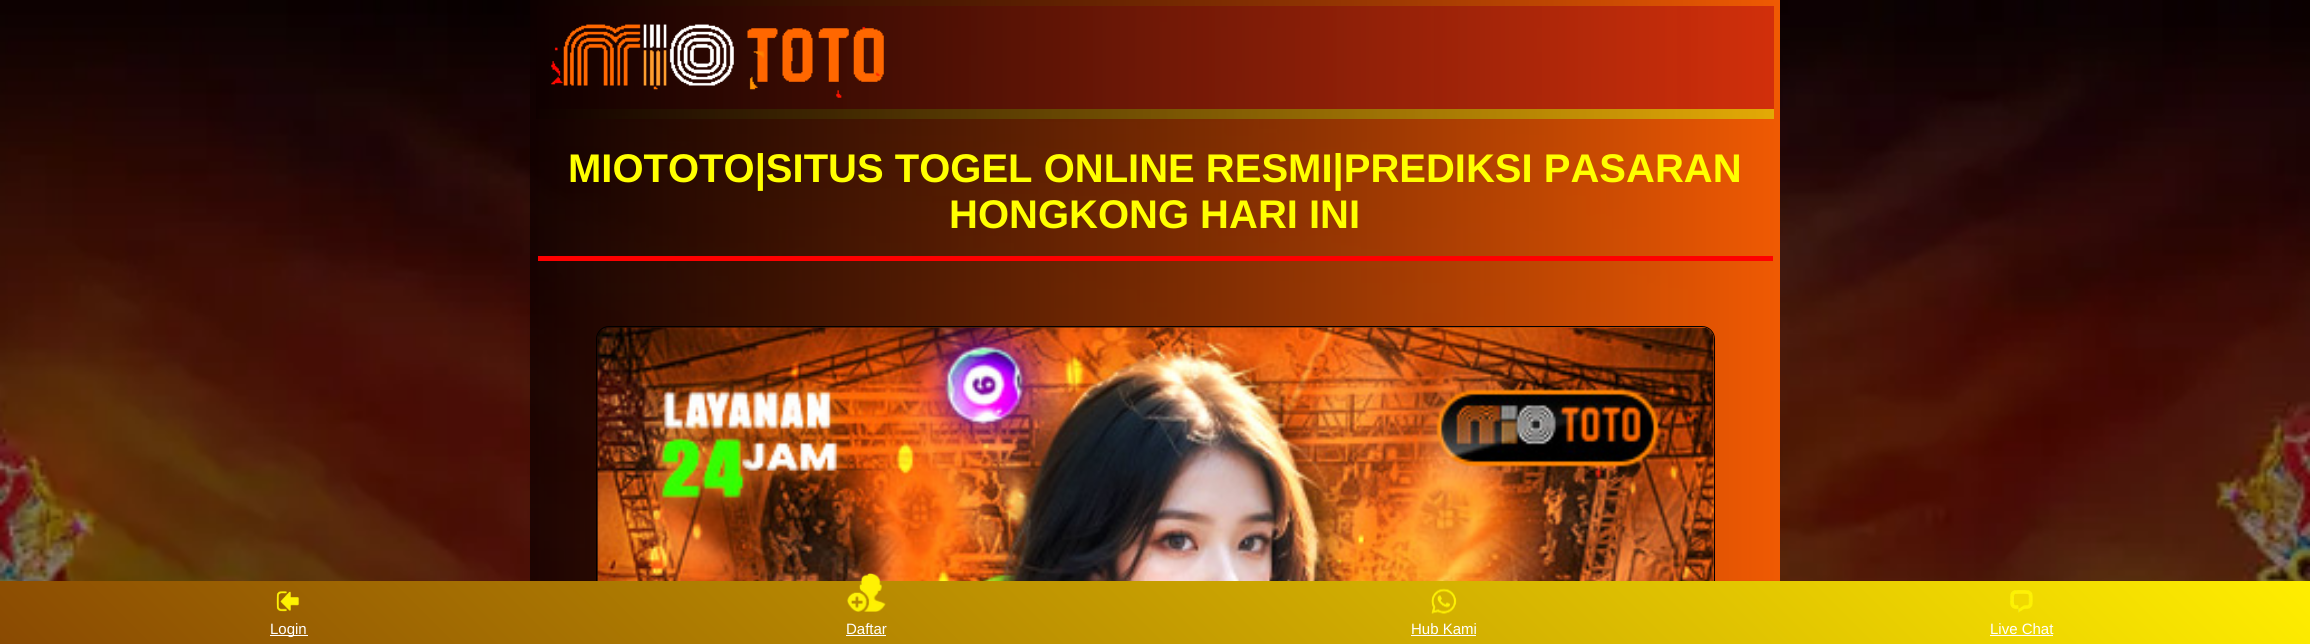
import math
import cairo


def round_path(ctx, x, y, w, h, r):
	ctx.new_sub_path()
	for i, (u, v) in enumerate([(x + w - r, y + h - r), (x + r, y + h - r), (x + r, y + r), (x + w - r, y + r)]):
		ctx.arc(u, v, r, i * math.pi / 2, (i + 1) * math.pi / 2)
	ctx.close_path()

def paste(ctx, path, x, y, w, h):
	ctx.save()
	ctx.set_source_surface(cairo.ImageSurface.create_from_png(path), x, y)
	ctx.rectangle(x, y, w, h)
	ctx.fill()
	ctx.restore()

def draw(ctx):
	ctx.set_source_rgb(1, 1, 1)
	ctx.paint()
	paste(ctx, 'media/1.png', 0, 0, 2310, 581)
	paste(ctx, 'media/2.png', 551, 24, 333, 74)
	ctx.set_source_rgb(1, 0, 0)
	ctx.rectangle(538, 256, 1235, 5)
	ctx.fill()
	ctx.select_font_face('Liberation Sans', cairo.FONT_SLANT_NORMAL, cairo.FONT_WEIGHT_BOLD)
	ctx.set_font_size(40)
	ctx.set_source_rgb(1, 1, 0)
	ctx.move_to(568, 182)
	ctx.show_text('MIOTOTO|SITUS TOGEL ONLINE RESMI|PREDIKSI PASARAN')
	ctx.move_to(949, 228)
	ctx.show_text('HONGKONG HARI INI')
	round_path(ctx, 596.5, 326.5, 1118, 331, 12.5)
	ctx.set_source_rgb(0, 0, 0)
	ctx.set_line_width(1)
	ctx.stroke()
	paste(ctx, 'media/3.png', 597, 327, 1117, 254)
	gradient = cairo.LinearGradient(562, 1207, 1748, 20)
	gradient.add_color_stop_rgba(0, 0.541, 0.29, 0.008, 1)
	gradient.add_color_stop_rgba(1, 1, 0.933, 0, 1)
	ctx.set_source(gradient)
	ctx.rectangle(0, 581, 2310, 63)
	ctx.fill()
	paste(ctx, 'media/4.png', 276, 591, 24, 21)
	ctx.set_source_rgb(1, 1, 1)
	ctx.rectangle(270, 635, 38, 1)
	ctx.fill()
	ctx.select_font_face('Liberation Sans')
	ctx.set_font_size(15)
	ctx.move_to(270, 634)
	ctx.show_text('Login')
	paste(ctx, 'media/5.png', 847, 573, 39, 39)
	ctx.move_to(846, 634)
	ctx.show_text('Daftar')
	ctx.rectangle(846, 635, 40, 1)
	ctx.fill()
	paste(ctx, 'media/6.png', 1431, 588, 26, 26)
	ctx.move_to(1411, 634)
	ctx.show_text('Hub Kami')
	ctx.rectangle(1411, 635, 65, 1)
	ctx.fill()
	paste(ctx, 'media/7.png', 2010, 590, 23, 23)
	ctx.move_to(1990, 634)
	ctx.show_text('Live Chat')
	ctx.rectangle(1990, 635, 63, 1)
	ctx.fill()


surface = cairo.ImageSurface(cairo.FORMAT_RGB24, 2310, 644)
ctx = cairo.Context(surface)
options = cairo.FontOptions()
options.set_hint_metrics(cairo.HINT_METRICS_OFF)
options.set_hint_style(cairo.HINT_STYLE_NONE)
ctx.set_font_options(options)
ctx.set_miter_limit(4)
draw(ctx)
surface.write_to_png('image.png')
